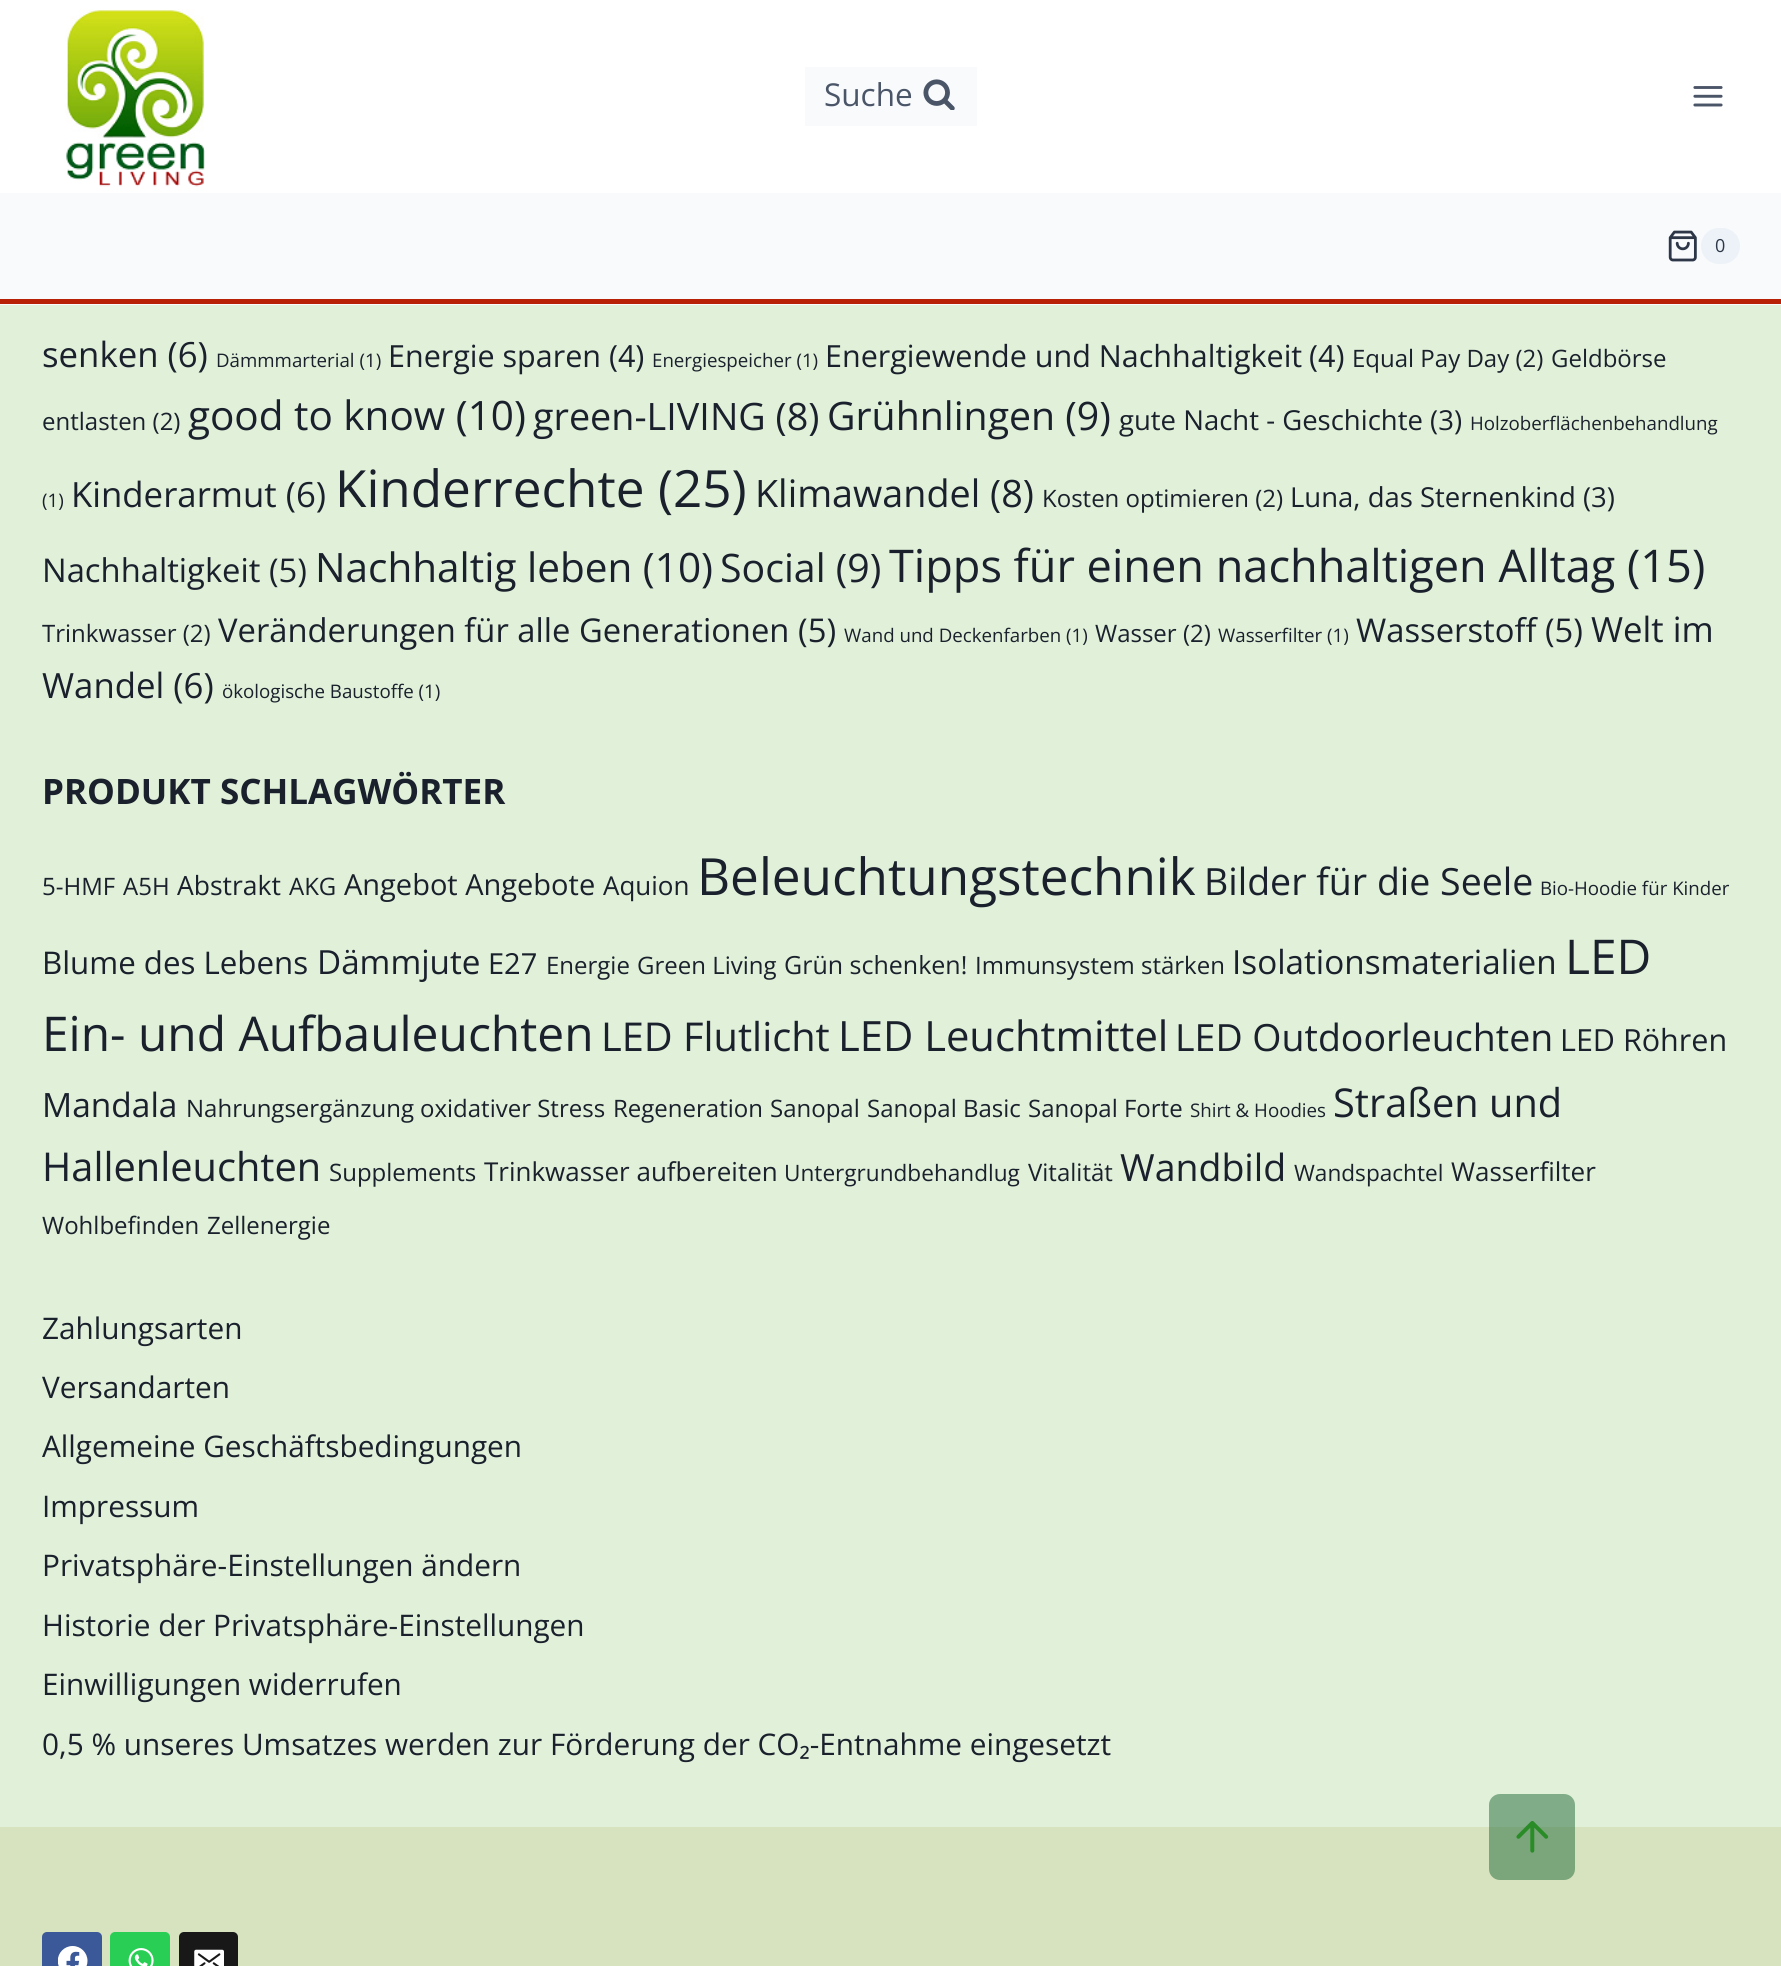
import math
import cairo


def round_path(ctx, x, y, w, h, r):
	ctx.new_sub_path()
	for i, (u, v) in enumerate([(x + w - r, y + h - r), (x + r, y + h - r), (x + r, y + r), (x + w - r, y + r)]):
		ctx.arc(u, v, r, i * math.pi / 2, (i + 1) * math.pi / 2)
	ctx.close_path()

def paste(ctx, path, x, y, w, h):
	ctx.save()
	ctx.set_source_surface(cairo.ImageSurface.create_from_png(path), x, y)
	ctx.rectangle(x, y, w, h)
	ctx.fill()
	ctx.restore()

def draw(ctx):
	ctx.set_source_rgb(0.878, 0.941, 0.851)
	ctx.paint()
	ctx.set_source_rgb(0.969, 0.98, 0.988)
	ctx.rectangle(0, 193, 1781, 112)
	ctx.fill()
	ctx.set_source_rgb(1, 1, 1)
	ctx.rectangle(0, 0, 1781, 193)
	ctx.fill()
	paste(ctx, 'media/1.png', 65, 9, 140, 178)
	ctx.set_source_rgb(0.969, 0.98, 0.988)
	ctx.rectangle(805, 67, 172, 59)
	ctx.fill()
	ctx.select_font_face('Open Sans')
	ctx.set_font_size(31.5)
	ctx.set_source_rgb(0.29, 0.333, 0.408)
	ctx.move_to(824, 106)
	ctx.show_text('Suche')
	paste(ctx, 'media/2.png', 923, 79, 32, 31)
	paste(ctx, 'media/3.png', 1693, 86, 30, 21)
	ctx.set_source_rgb(0.722, 0.129, 0.02)
	ctx.rectangle(0, 299, 1781, 5)
	ctx.fill()
	paste(ctx, 'media/4.png', 1668, 230, 29, 32)
	ctx.set_source_rgb(0.929, 0.949, 0.969)
	round_path(ctx, 1701, 228, 39, 36, 18)
	ctx.fill()
	ctx.set_font_size(18)
	ctx.set_source_rgb(0.176, 0.216, 0.282)
	ctx.move_to(1715, 252)
	ctx.show_text('0')
	ctx.set_font_size(34.75)
	ctx.set_source_rgb(0.102, 0.125, 0.173)
	ctx.move_to(42, 367)
	ctx.show_text('senken (6)')
	ctx.set_font_size(18.7)
	ctx.move_to(216, 367)
	ctx.show_text('Dämmmarterial (1)')
	ctx.set_font_size(30.5)
	ctx.move_to(388, 367)
	ctx.show_text('Energie sparen (4)')
	ctx.set_font_size(18.7)
	ctx.move_to(652, 367)
	ctx.show_text('Energiespeicher (1)')
	ctx.set_font_size(30.5)
	ctx.move_to(825, 367)
	ctx.show_text('Energiewende und Nachhaltigkeit')
	ctx.move_to(1309, 367)
	ctx.show_text('(4)')
	ctx.set_font_size(24)
	for x, y, s in [
		(1352, 367, 'Equal Pay Day (2)'),
		(1551, 367, 'Geldbörse'),
		(42, 430, 'entlasten (2)'),
	]:
		ctx.move_to(x, y)
		ctx.show_text(s)
	ctx.set_font_size(40.5)
	ctx.move_to(188, 430)
	ctx.show_text('good to know (10)')
	ctx.set_font_size(37.75)
	ctx.move_to(533, 430)
	ctx.show_text('green-LIVING (8)')
	ctx.set_font_size(39.25)
	ctx.move_to(827, 430)
	ctx.show_text('Grühnlingen (9)')
	ctx.set_font_size(27.5)
	ctx.move_to(1119, 430)
	ctx.show_text('gute Nacht - Geschichte (3)')
	ctx.set_font_size(18.7)
	ctx.move_to(1470, 430)
	ctx.show_text('Holzoberflächenbehandlung')
	ctx.move_to(42, 507)
	ctx.show_text('(1)')
	ctx.set_font_size(34.75)
	ctx.move_to(71, 507)
	ctx.show_text('Kinderarmut (6)')
	ctx.set_font_size(51.25)
	ctx.move_to(335, 507)
	ctx.show_text('Kinderrechte (25)')
	ctx.set_font_size(37.75)
	ctx.move_to(755, 507)
	ctx.show_text('Klimawandel (8)')
	ctx.set_font_size(24)
	ctx.move_to(1042, 507)
	ctx.show_text('Kosten optimieren (2)')
	ctx.set_font_size(27.5)
	ctx.move_to(1290, 507)
	ctx.show_text('Luna, das Sternenkind (3)')
	ctx.set_font_size(32.75)
	ctx.move_to(42, 582)
	ctx.show_text('Nachhaltigkeit (5)')
	ctx.set_font_size(40.5)
	ctx.move_to(315, 582)
	ctx.show_text('Nachhaltig leben (10)')
	ctx.set_font_size(39.25)
	ctx.move_to(720, 582)
	ctx.show_text('Social (9)')
	ctx.set_font_size(45.1)
	ctx.move_to(889, 582)
	ctx.show_text('Tipps für einen nachhaltigen Alltag (15)')
	ctx.set_font_size(24)
	ctx.move_to(42, 642)
	ctx.show_text('Trinkwasser (2)')
	ctx.set_font_size(32.75)
	ctx.move_to(218, 642)
	ctx.show_text('Veränderungen für alle Generationen')
	ctx.move_to(798, 642)
	ctx.show_text('(5)')
	ctx.set_font_size(18.7)
	ctx.move_to(844, 642)
	ctx.show_text('Wand und Deckenfarben (1)')
	ctx.set_font_size(24)
	ctx.move_to(1095, 642)
	ctx.show_text('Wasser (2)')
	ctx.set_font_size(18.7)
	ctx.move_to(1218, 642)
	ctx.show_text('Wasserfilter (1)')
	ctx.set_font_size(32.75)
	ctx.move_to(1356, 642)
	ctx.show_text('Wasserstoff (5)')
	ctx.set_font_size(34.75)
	ctx.move_to(1591, 642)
	ctx.show_text('Welt im')
	ctx.move_to(42, 698)
	ctx.show_text('Wandel (6)')
	ctx.set_font_size(18.7)
	ctx.move_to(222, 698)
	ctx.show_text('ökologische Baustoffe (1)')
	ctx.select_font_face('Open Sans', cairo.FONT_SLANT_NORMAL, cairo.FONT_WEIGHT_BOLD)
	ctx.set_font_size(35)
	ctx.move_to(42, 804)
	ctx.show_text('PRODUKT SCHLAGWÖRTER')
	ctx.select_font_face('Open Sans')
	ctx.set_font_size(24)
	ctx.move_to(42, 895)
	ctx.show_text('5-HMF')
	ctx.move_to(123, 895)
	ctx.show_text('A5H')
	ctx.set_font_size(26.5)
	ctx.move_to(177, 895)
	ctx.show_text('Abstrakt')
	ctx.set_font_size(24)
	ctx.move_to(289, 895)
	ctx.show_text('AKG')
	ctx.set_font_size(29)
	ctx.move_to(344, 895)
	ctx.show_text('Angebot Angebote')
	ctx.set_font_size(26)
	ctx.move_to(603, 895)
	ctx.show_text('Aquion')
	ctx.set_font_size(51.25)
	ctx.move_to(697, 895)
	ctx.show_text('Beleuchtungstechnik')
	ctx.set_font_size(37.5)
	ctx.move_to(1204, 895)
	ctx.show_text('Bilder für die Seele')
	ctx.set_font_size(18.7)
	ctx.move_to(1540, 895)
	ctx.show_text('Bio-Hoodie für Kinder')
	ctx.set_font_size(31.25)
	ctx.move_to(42, 974)
	ctx.show_text('Blume des Lebens')
	ctx.set_font_size(33.25)
	ctx.move_to(317, 974)
	ctx.show_text('Dämmjute')
	ctx.set_font_size(29)
	ctx.move_to(488, 974)
	ctx.show_text('E27')
	ctx.set_font_size(24)
	ctx.move_to(546, 974)
	ctx.show_text('Energie')
	ctx.move_to(637, 974)
	ctx.show_text('Green Living')
	ctx.set_font_size(25)
	ctx.move_to(784, 974)
	ctx.show_text('Grün schenken!')
	ctx.set_font_size(24)
	ctx.move_to(975, 974)
	ctx.show_text('Immunsystem stärken')
	ctx.set_font_size(33.25)
	ctx.move_to(1232, 974)
	ctx.show_text('Isolationsmaterialien')
	ctx.set_font_size(47.9)
	ctx.move_to(1565, 974)
	ctx.show_text('LED')
	ctx.move_to(42, 1051)
	ctx.show_text('Ein- und Aufbauleuchten')
	ctx.set_font_size(39.75)
	ctx.move_to(601, 1051)
	ctx.show_text('LED Flutlicht')
	ctx.set_font_size(41.75)
	ctx.move_to(838, 1051)
	ctx.show_text('LED Leuchtmittel')
	ctx.set_font_size(37.5)
	ctx.move_to(1175, 1051)
	ctx.show_text('LED Outdoorleuchten')
	ctx.set_font_size(30.5)
	ctx.move_to(1560, 1051)
	ctx.show_text('LED Röhren')
	ctx.set_font_size(33.5)
	ctx.move_to(42, 1117)
	ctx.show_text('Mandala')
	ctx.set_font_size(24)
	for x, y, s in [
		(186, 1117, 'Nahrungsergänzung'),
		(420, 1117, 'oxidativer Stress'),
		(613, 1117, 'Regeneration'),
		(770, 1117, 'Sanopal'),
		(867, 1117, 'Sanopal Basic'),
		(1028, 1117, 'Sanopal Forte'),
	]:
		ctx.move_to(x, y)
		ctx.show_text(s)
	ctx.set_font_size(18.7)
	ctx.move_to(1190, 1117)
	ctx.show_text('Shirt & Hoodies')
	ctx.set_font_size(39.75)
	ctx.move_to(1333, 1117)
	ctx.show_text('Straßen und')
	ctx.move_to(42, 1181)
	ctx.show_text('Hallenleuchten')
	ctx.set_font_size(24)
	ctx.move_to(329, 1181)
	ctx.show_text('Supplements')
	ctx.set_font_size(26)
	ctx.move_to(484, 1181)
	ctx.show_text('Trinkwasser aufbereiten')
	ctx.set_font_size(22.6)
	ctx.move_to(784, 1181)
	ctx.show_text('Untergrundbehandlug')
	ctx.set_font_size(24)
	ctx.move_to(1028, 1181)
	ctx.show_text('Vitalität')
	ctx.set_font_size(37.5)
	ctx.move_to(1120, 1181)
	ctx.show_text('Wandbild')
	ctx.set_font_size(22.6)
	ctx.move_to(1294, 1181)
	ctx.show_text('Wandspachtel')
	ctx.set_font_size(26)
	ctx.move_to(1451, 1181)
	ctx.show_text('Wasserfilter')
	ctx.set_font_size(24)
	ctx.move_to(42, 1234)
	ctx.show_text('Wohlbefinden')
	ctx.move_to(207, 1234)
	ctx.show_text('Zellenergie')
	ctx.set_font_size(29.75)
	for x, y, s in [
		(42, 1339, 'Zahlungsarten'),
		(42, 1398, 'Versandarten'),
		(42, 1457, 'Allgemeine Geschäftsbedingungen'),
		(42, 1517, 'Impressum'),
		(42, 1576, 'Privatsphäre-Einstellungen ändern'),
		(42, 1636, 'Historie der Privatsphäre-Einstellungen'),
		(42, 1695, 'Einwilligungen widerrufen'),
		(42, 1755, '0,5 % unseres Umsatzes werden zur Förderung der CO₂-Entnahme eingesetzt'),
	]:
		ctx.move_to(x, y)
		ctx.show_text(s)
	ctx.set_source_rgb(0.843, 0.89, 0.749)
	ctx.rectangle(0, 1827, 1781, 139)
	ctx.fill()
	ctx.set_source_rgb(0.231, 0.349, 0.596)
	round_path(ctx, 42, 1932, 60, 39, 5)
	ctx.fill()
	paste(ctx, 'media/5.png', 58, 1946, 30, 20)
	ctx.set_source_rgb(0.157, 0.812, 0.329)
	round_path(ctx, 110, 1932, 60, 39, 5)
	ctx.fill()
	paste(ctx, 'media/6.png', 128, 1948, 26, 18)
	ctx.set_source_rgb(0.094, 0.094, 0.094)
	round_path(ctx, 179, 1932, 59, 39, 5)
	ctx.fill()
	paste(ctx, 'media/7.png', 194, 1949, 30, 17)
	ctx.set_source_rgba(0.075, 0.38, 0.18, 0.47)
	round_path(ctx, 1489, 1794, 86, 86, 11)
	ctx.fill()
	paste(ctx, 'media/8.png', 1516, 1821, 33, 32)


surface = cairo.ImageSurface(cairo.FORMAT_RGB24, 1781, 1966)
ctx = cairo.Context(surface)
options = cairo.FontOptions()
options.set_hint_metrics(cairo.HINT_METRICS_OFF)
options.set_hint_style(cairo.HINT_STYLE_NONE)
ctx.set_font_options(options)
ctx.set_miter_limit(4)
draw(ctx)
surface.write_to_png('image.png')
